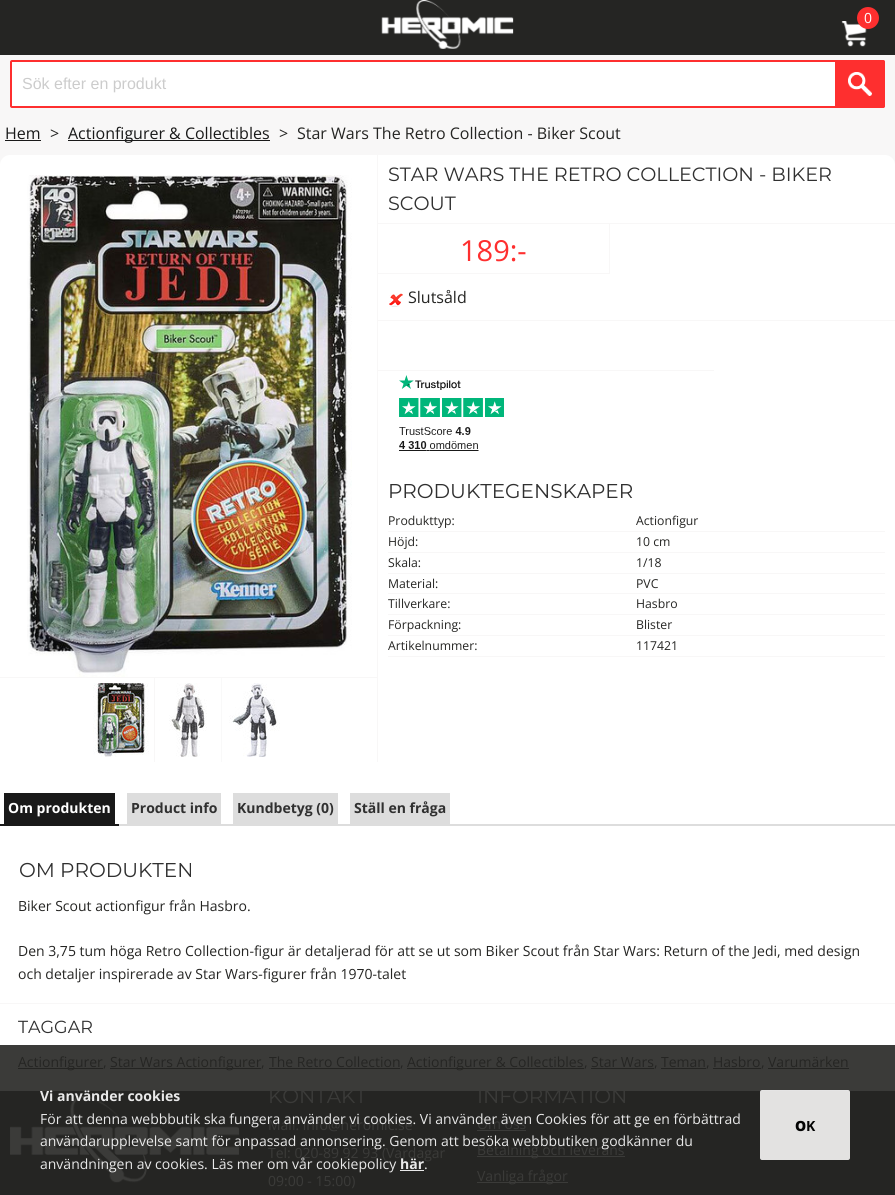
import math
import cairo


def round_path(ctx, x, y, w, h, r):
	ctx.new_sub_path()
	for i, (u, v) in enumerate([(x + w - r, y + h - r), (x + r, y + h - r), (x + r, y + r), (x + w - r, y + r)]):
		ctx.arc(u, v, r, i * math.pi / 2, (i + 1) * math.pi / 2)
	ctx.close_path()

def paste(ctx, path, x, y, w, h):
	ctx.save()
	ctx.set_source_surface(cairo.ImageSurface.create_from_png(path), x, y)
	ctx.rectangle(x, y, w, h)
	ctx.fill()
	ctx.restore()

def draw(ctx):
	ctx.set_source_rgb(0.969, 0.965, 0.965)
	ctx.paint()
	ctx.set_source_rgb(0.145, 0.145, 0.137)
	ctx.rectangle(0, 0, 895, 55)
	ctx.fill()
	paste(ctx, 'media/1.png', 381, 0, 133, 49)
	paste(ctx, 'media/2.png', 841, 21, 26, 26)
	ctx.set_source_rgb(0.996, 0.184, 0.184)
	ctx.arc(868, 18, 11, 0, 2 * math.pi)
	ctx.fill()
	ctx.select_font_face('Open Sans')
	ctx.set_font_size(14)
	ctx.set_source_rgb(1, 1, 1)
	ctx.move_to(864, 23)
	ctx.show_text('0')
	round_path(ctx, 11, 61, 873, 46, 1)
	ctx.fill_preserve()
	ctx.set_source_rgb(0.996, 0.184, 0.184)
	ctx.stroke()
	ctx.select_font_face('Liberation Sans')
	ctx.set_font_size(16)
	ctx.set_source_rgb(0.8, 0.8, 0.8)
	ctx.move_to(22, 89)
	ctx.show_text('Sök efter en produkt')
	ctx.set_source_rgb(0.996, 0.184, 0.184)
	ctx.new_path()
	ctx.move_to(835, 60)
	ctx.line_to(883, 60)
	ctx.curve_to(884, 60, 885, 61, 885, 62)
	ctx.line_to(885, 106)
	ctx.curve_to(885, 107, 884, 108, 883, 108)
	ctx.line_to(835, 108)
	ctx.close_path()
	ctx.fill()
	paste(ctx, 'media/3.png', 848, 72, 24, 24)
	ctx.select_font_face('Open Sans')
	ctx.set_source_rgb(0.098, 0.098, 0.098)
	ctx.move_to(5, 139)
	ctx.show_text('Hem')
	ctx.rectangle(5, 140, 36, 1)
	ctx.fill()
	ctx.set_source_rgb(0.145, 0.145, 0.137)
	ctx.move_to(50, 139)
	ctx.show_text('>')
	ctx.set_source_rgb(0.098, 0.098, 0.098)
	ctx.rectangle(68, 140, 202, 1)
	ctx.fill()
	ctx.move_to(68, 139)
	ctx.show_text('Actionfigurer & Collectibles')
	ctx.set_source_rgb(0.145, 0.145, 0.137)
	ctx.move_to(279, 139)
	ctx.show_text('>')
	ctx.move_to(297, 139)
	ctx.show_text('Star Wars The Retro Collection - Biker Scout')
	ctx.set_source_rgb(1, 1, 1)
	ctx.rectangle(378, 667, 517, 95)
	ctx.fill()
	ctx.new_path()
	ctx.move_to(10, 155)
	ctx.line_to(377, 155)
	ctx.line_to(377, 677)
	ctx.line_to(0, 677)
	ctx.line_to(0, 165)
	ctx.curve_to(0, 159.5, 4.5, 155, 10, 155)
	ctx.close_path()
	ctx.fill()
	paste(ctx, 'media/4.png', 27, 175, 325, 502)
	ctx.rectangle(0, 678, 377, 84)
	ctx.fill()
	paste(ctx, 'media/5.png', 93, 683, 56, 74)
	ctx.set_source_rgb(0.969, 0.965, 0.965)
	ctx.rectangle(154, 678, 1, 84)
	ctx.fill()
	paste(ctx, 'media/6.png', 169, 683, 38, 74)
	ctx.set_source_rgb(0.976, 0.973, 0.973)
	ctx.rectangle(221, 678, 1, 84)
	ctx.fill()
	paste(ctx, 'media/7.png', 229, 683, 51, 74)
	ctx.set_source_rgb(1, 1, 1)
	ctx.new_path()
	ctx.move_to(378, 155)
	ctx.line_to(885, 155)
	ctx.curve_to(890.5, 155, 895, 159.5, 895, 165)
	ctx.line_to(895, 667)
	ctx.line_to(378, 667)
	ctx.close_path()
	ctx.fill()
	ctx.set_source_rgb(0.969, 0.965, 0.965)
	ctx.rectangle(378, 223, 517, 1)
	ctx.fill()
	ctx.select_font_face('Montserrat')
	ctx.set_font_size(19.2)
	ctx.set_source_rgb(0.188, 0.188, 0.188)
	ctx.move_to(388, 181)
	ctx.show_text('STAR WARS THE RETRO COLLECTION - BIKER')
	ctx.move_to(388, 210)
	ctx.show_text('SCOUT')
	ctx.set_source_rgb(0.969, 0.965, 0.965)
	ctx.rectangle(609, 224, 1, 50)
	ctx.fill()
	ctx.rectangle(378, 273, 232, 1)
	ctx.fill()
	ctx.select_font_face('Open Sans')
	ctx.set_font_size(29)
	ctx.set_source_rgb(0.996, 0.184, 0.184)
	ctx.move_to(460, 261)
	ctx.show_text('189:-')
	ctx.set_source_rgb(0.969, 0.965, 0.965)
	ctx.rectangle(378, 320, 517, 1)
	ctx.fill()
	paste(ctx, 'media/8.png', 389, 293, 14, 14)
	ctx.set_font_size(16)
	ctx.set_source_rgb(0.145, 0.145, 0.137)
	ctx.move_to(408, 303)
	ctx.show_text('Slutsåld')
	ctx.set_source_rgb(0.969, 0.965, 0.965)
	ctx.rectangle(378, 370, 336, 1)
	ctx.fill()
	paste(ctx, 'media/9.png', 399, 375, 105, 76)
	ctx.select_font_face('Montserrat')
	ctx.set_font_size(20)
	ctx.set_source_rgb(0.188, 0.188, 0.188)
	ctx.move_to(388, 498)
	ctx.show_text('PRODUKTEGENSKAPER')
	ctx.set_source_rgb(0.969, 0.965, 0.965)
	ctx.rectangle(388, 531, 497, 1)
	ctx.fill()
	ctx.select_font_face('Open Sans')
	ctx.set_font_size(12.25)
	ctx.set_source_rgb(0.145, 0.145, 0.137)
	ctx.move_to(388, 525)
	ctx.show_text('Produkttyp:')
	ctx.move_to(636, 525)
	ctx.show_text('Actionfigur')
	ctx.set_source_rgb(0.969, 0.965, 0.965)
	ctx.rectangle(388, 552, 497, 1)
	ctx.fill()
	ctx.set_source_rgb(0.145, 0.145, 0.137)
	ctx.move_to(388, 546)
	ctx.show_text('Höjd:')
	ctx.move_to(636, 546)
	ctx.show_text('10 cm')
	ctx.set_source_rgb(0.969, 0.965, 0.965)
	ctx.rectangle(388, 573, 497, 1)
	ctx.fill()
	ctx.set_source_rgb(0.145, 0.145, 0.137)
	ctx.move_to(388, 567)
	ctx.show_text('Skala:')
	ctx.move_to(636, 567)
	ctx.show_text('1/18')
	ctx.set_source_rgb(0.969, 0.965, 0.965)
	ctx.rectangle(388, 593, 497, 1)
	ctx.fill()
	ctx.set_source_rgb(0.145, 0.145, 0.137)
	ctx.move_to(388, 588)
	ctx.show_text('Material:')
	ctx.move_to(636, 588)
	ctx.show_text('PVC')
	ctx.set_source_rgb(0.969, 0.965, 0.965)
	ctx.rectangle(388, 614, 497, 1)
	ctx.fill()
	ctx.set_source_rgb(0.145, 0.145, 0.137)
	ctx.move_to(388, 608)
	ctx.show_text('Tillverkare:')
	ctx.move_to(636, 608)
	ctx.show_text('Hasbro')
	ctx.set_source_rgb(0.969, 0.965, 0.965)
	ctx.rectangle(388, 635, 497, 1)
	ctx.fill()
	ctx.set_source_rgb(0.145, 0.145, 0.137)
	ctx.move_to(388, 629)
	ctx.show_text('Förpackning:')
	ctx.move_to(636, 629)
	ctx.show_text('Blister')
	ctx.set_source_rgb(0.969, 0.965, 0.965)
	ctx.rectangle(388, 656, 497, 1)
	ctx.fill()
	ctx.set_source_rgb(0.145, 0.145, 0.137)
	ctx.move_to(388, 650)
	ctx.show_text('Artikelnummer:')
	ctx.move_to(636, 650)
	ctx.show_text('117421')
	ctx.set_source_rgb(1, 1, 1)
	ctx.rectangle(0, 762, 895, 283)
	ctx.fill()
	ctx.set_source_rgb(0.231, 0.231, 0.224)
	ctx.rectangle(0, 1045, 895, 46)
	ctx.fill()
	ctx.set_source_rgb(0.867, 0.867, 0.867)
	ctx.rectangle(119, 824, 776, 2)
	ctx.fill()
	ctx.set_source_rgb(0.098, 0.098, 0.098)
	ctx.rectangle(0, 824, 119, 2)
	ctx.rectangle(4, 793, 111, 31)
	ctx.fill()
	ctx.select_font_face('Open Sans', cairo.FONT_SLANT_NORMAL, cairo.FONT_WEIGHT_BOLD)
	ctx.set_font_size(14)
	ctx.set_source_rgb(1, 1, 1)
	ctx.move_to(8, 813)
	ctx.show_text('Om produkten')
	ctx.set_source_rgb(0.867, 0.867, 0.867)
	ctx.rectangle(127, 793, 94, 31)
	ctx.fill()
	ctx.set_source_rgb(0.188, 0.188, 0.188)
	ctx.move_to(131, 813)
	ctx.show_text('Product info')
	ctx.set_source_rgb(0.867, 0.867, 0.867)
	ctx.rectangle(233, 793, 105, 31)
	ctx.fill()
	ctx.set_source_rgb(0.188, 0.188, 0.188)
	ctx.move_to(237, 813)
	ctx.show_text('Kundbetyg (0)')
	ctx.set_source_rgb(0.867, 0.867, 0.867)
	ctx.rectangle(350, 793, 100, 31)
	ctx.fill()
	ctx.set_source_rgb(0.188, 0.188, 0.188)
	ctx.move_to(354, 813)
	ctx.show_text('Ställ en fråga')
	ctx.select_font_face('Montserrat')
	ctx.set_font_size(20)
	ctx.move_to(19, 877)
	ctx.show_text('OM PRODUKTEN')
	ctx.select_font_face('Open Sans')
	ctx.set_font_size(14)
	ctx.set_source_rgb(0.145, 0.145, 0.137)
	for x, y, s in [
		(18, 911, 'Biker Scout actionfigur från Hasbro.'),
		(18, 956, 'Den 3,75 tum höga Retro Collection-figur är detaljerad för att se ut som Biker Scout från Star Wars: Return of the Jedi, med design'),
		(18, 979, 'och detaljer inspirerade av Star Wars-figurer från 1970-talet'),
	]:
		ctx.move_to(x, y)
		ctx.show_text(s)
	ctx.set_source_rgb(0.969, 0.965, 0.965)
	ctx.rectangle(0, 1003, 895, 1)
	ctx.fill()
	ctx.select_font_face('Montserrat')
	ctx.set_font_size(17.5)
	ctx.set_source_rgb(0.188, 0.188, 0.188)
	ctx.move_to(18, 1033)
	ctx.show_text('TAGGAR')
	ctx.set_source_rgb(0.141, 0.141, 0.133)
	ctx.rectangle(18, 1068, 85, 1)
	ctx.fill()
	ctx.select_font_face('Open Sans')
	ctx.set_font_size(14)
	ctx.set_source_rgb(0.145, 0.145, 0.137)
	ctx.move_to(18, 1067)
	ctx.show_text('Actionfigurer')
	ctx.move_to(103, 1067)
	ctx.show_text(',')
	ctx.set_source_rgb(0.141, 0.141, 0.133)
	ctx.rectangle(110, 1068, 151, 1)
	ctx.fill()
	ctx.set_source_rgb(0.145, 0.145, 0.137)
	for x, y, s in [
		(110, 1067, 'Star Wars Actionfigurer'),
		(261, 1067, ','),
		(269, 1067, 'The Retro Collection'),
	]:
		ctx.move_to(x, y)
		ctx.show_text(s)
	ctx.set_source_rgb(0.141, 0.141, 0.133)
	ctx.rectangle(269, 1068, 131, 1)
	ctx.fill()
	ctx.set_source_rgb(0.145, 0.145, 0.137)
	ctx.move_to(400, 1067)
	ctx.show_text(',')
	ctx.set_source_rgb(0.141, 0.141, 0.133)
	ctx.rectangle(407, 1068, 177, 1)
	ctx.fill()
	ctx.set_source_rgb(0.145, 0.145, 0.137)
	for x, y, s in [
		(407, 1067, 'Actionfigurer & Collectibles'),
		(584, 1067, ','),
		(591, 1067, 'Star Wars'),
	]:
		ctx.move_to(x, y)
		ctx.show_text(s)
	ctx.set_source_rgb(0.141, 0.141, 0.133)
	ctx.rectangle(591, 1068, 63, 1)
	ctx.fill()
	ctx.set_source_rgb(0.145, 0.145, 0.137)
	ctx.move_to(654, 1067)
	ctx.show_text(',')
	ctx.move_to(661, 1067)
	ctx.show_text('Teman')
	ctx.set_source_rgb(0.141, 0.141, 0.133)
	ctx.rectangle(661, 1068, 45, 1)
	ctx.fill()
	ctx.set_source_rgb(0.145, 0.145, 0.137)
	ctx.move_to(706, 1067)
	ctx.show_text(',')
	ctx.move_to(713, 1067)
	ctx.show_text('Hasbro')
	ctx.set_source_rgb(0.141, 0.141, 0.133)
	ctx.rectangle(713, 1068, 48, 1)
	ctx.fill()
	ctx.set_source_rgb(0.145, 0.145, 0.137)
	ctx.move_to(761, 1067)
	ctx.show_text(',')
	ctx.move_to(768, 1067)
	ctx.show_text('Varumärken')
	ctx.set_source_rgb(0.141, 0.141, 0.133)
	ctx.rectangle(768, 1068, 81, 1)
	ctx.fill()
	ctx.set_source_rgb(0.145, 0.145, 0.137)
	ctx.rectangle(0, 1091, 895, 104)
	ctx.fill()
	paste(ctx, 'media/10.png', 10, 1095, 229, 88)
	ctx.select_font_face('Montserrat')
	ctx.set_font_size(20)
	ctx.set_source_rgb(0.231, 0.231, 0.224)
	ctx.move_to(268, 1103)
	ctx.show_text('KONTAKT')
	ctx.select_font_face('Open Sans')
	ctx.set_font_size(14)
	for x, y, s in [
		(268, 1130, 'Mail: info@heromic.se'),
		(268, 1158, 'Tel: 020-89 92 93 (Vardagar'),
		(268, 1186, '09:00 - 15:00)'),
	]:
		ctx.move_to(x, y)
		ctx.show_text(s)
	ctx.select_font_face('Montserrat')
	ctx.set_font_size(20)
	ctx.move_to(477, 1103)
	ctx.show_text('INFORMATION')
	ctx.select_font_face('Open Sans')
	ctx.set_font_size(14)
	ctx.move_to(477, 1129)
	ctx.show_text('Om oss')
	ctx.rectangle(477, 1130, 49, 1)
	ctx.fill()
	ctx.rectangle(477, 1156, 148, 1)
	ctx.fill()
	ctx.move_to(477, 1155)
	ctx.show_text('Betalning och leverans')
	ctx.rectangle(477, 1182, 91, 1)
	ctx.fill()
	ctx.move_to(477, 1181)
	ctx.show_text('Vanliga frågor')
	ctx.select_font_face('Open Sans', cairo.FONT_SLANT_NORMAL, cairo.FONT_WEIGHT_BOLD)
	ctx.set_source_rgb(0.914, 0.914, 0.914)
	ctx.move_to(40, 1101)
	ctx.show_text('Vi använder cookies')
	ctx.select_font_face('Open Sans')
	for x, y, s in [
		(40, 1124, 'För att denna webbbutik ska fungera använder vi cookies. Vi använder även Cookies för att ge en förbättrad'),
		(40, 1146, 'användarupplevelse samt för anpassad annonsering. Genom att besöka webbbutiken godkänner du'),
		(40, 1169, 'användningen av cookies. Läs mer om vår cookiepolicy'),
	]:
		ctx.move_to(x, y)
		ctx.show_text(s)
	ctx.select_font_face('Open Sans', cairo.FONT_SLANT_NORMAL, cairo.FONT_WEIGHT_BOLD)
	ctx.move_to(400, 1169)
	ctx.show_text('här')
	ctx.rectangle(400, 1170, 24, 1)
	ctx.fill()
	ctx.select_font_face('Open Sans')
	ctx.move_to(424, 1169)
	ctx.show_text('.')
	ctx.set_source_rgba(0.969, 0.965, 0.965, 0.9)
	round_path(ctx, 760, 1090, 90, 70, 2)
	ctx.fill()
	ctx.select_font_face('Noto Sans Black')
	ctx.set_source_rgb(0.016, 0.016, 0.016)
	ctx.move_to(795, 1131)
	ctx.show_text('O')
	ctx.select_font_face('Open Sans', cairo.FONT_SLANT_NORMAL, cairo.FONT_WEIGHT_BOLD)
	ctx.move_to(806, 1131)
	ctx.show_text('K')


surface = cairo.ImageSurface(cairo.FORMAT_RGB24, 895, 1195)
ctx = cairo.Context(surface)
options = cairo.FontOptions()
options.set_hint_metrics(cairo.HINT_METRICS_OFF)
options.set_hint_style(cairo.HINT_STYLE_NONE)
ctx.set_font_options(options)
ctx.set_miter_limit(4)
draw(ctx)
surface.write_to_png('image.png')
